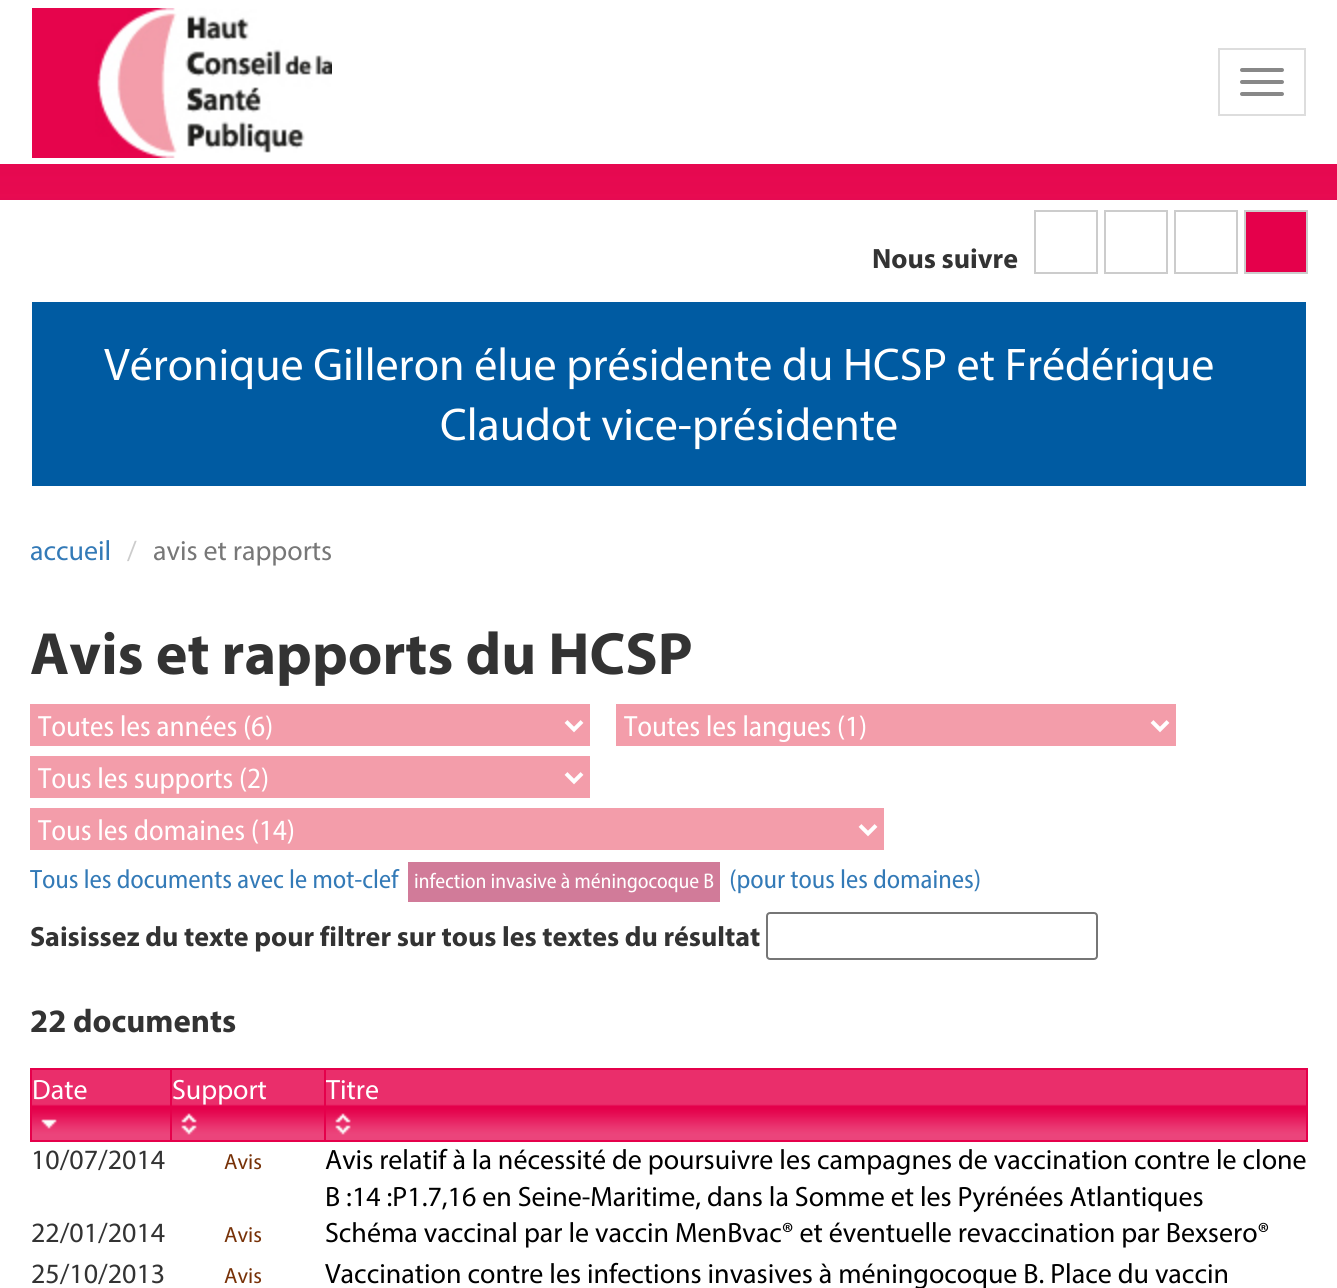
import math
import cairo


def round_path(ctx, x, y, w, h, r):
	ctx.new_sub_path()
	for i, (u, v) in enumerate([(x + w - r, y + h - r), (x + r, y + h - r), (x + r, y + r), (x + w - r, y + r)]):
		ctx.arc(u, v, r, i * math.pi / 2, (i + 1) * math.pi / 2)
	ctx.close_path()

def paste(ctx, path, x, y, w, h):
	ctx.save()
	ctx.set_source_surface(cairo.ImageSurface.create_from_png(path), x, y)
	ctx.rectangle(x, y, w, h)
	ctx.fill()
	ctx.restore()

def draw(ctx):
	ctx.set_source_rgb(1, 1, 1)
	ctx.paint()
	paste(ctx, 'media/1.png', 0, 164, 1337, 36)
	paste(ctx, 'media/2.png', 32, 8, 300, 150)
	ctx.rectangle(1219, 49, 86, 66)
	ctx.set_source_rgb(0.867, 0.867, 0.867)
	ctx.stroke()
	ctx.set_source_rgb(0.533, 0.533, 0.533)
	round_path(ctx, 1240, 68, 44, 4, 2)
	ctx.fill()
	round_path(ctx, 1240, 80, 44, 4, 2)
	ctx.fill()
	round_path(ctx, 1240, 92, 44, 4, 2)
	ctx.fill()
	ctx.select_font_face('Myriad', cairo.FONT_SLANT_NORMAL, cairo.FONT_WEIGHT_BOLD)
	ctx.set_font_size(28)
	ctx.set_source_rgb(0.2, 0.2, 0.2)
	ctx.move_to(872, 268)
	ctx.show_text('Nous suivre')
	ctx.rectangle(1035, 211, 62, 62)
	ctx.set_source_rgb(0.8, 0.8, 0.8)
	ctx.stroke()
	ctx.rectangle(1105, 211, 62, 62)
	ctx.stroke()
	ctx.rectangle(1175, 211, 62, 62)
	ctx.stroke()
	ctx.set_source_rgb(0.898, 0, 0.294)
	ctx.rectangle(1245, 211, 62, 62)
	ctx.fill_preserve()
	ctx.set_source_rgb(0.8, 0.8, 0.8)
	ctx.stroke()
	ctx.set_source_rgb(0, 0.357, 0.635)
	ctx.rectangle(32, 302, 1274, 184)
	ctx.fill()
	ctx.select_font_face('Myriad')
	ctx.set_font_size(46)
	ctx.set_source_rgb(1, 1, 1)
	ctx.move_to(104, 380)
	ctx.show_text('Véronique Gilleron élue présidente du HCSP et Frédérique')
	ctx.move_to(440, 440)
	ctx.show_text('Claudot vice-présidente')
	ctx.set_font_size(28)
	ctx.set_source_rgb(0.2, 0.478, 0.718)
	ctx.move_to(30, 560)
	ctx.show_text('accueil')
	ctx.set_source_rgb(0.8, 0.8, 0.8)
	ctx.move_to(127, 560)
	ctx.show_text('/')
	ctx.set_source_rgb(0.467, 0.467, 0.467)
	ctx.move_to(153, 560)
	ctx.show_text('avis et rapports')
	ctx.select_font_face('Myriad', cairo.FONT_SLANT_NORMAL, cairo.FONT_WEIGHT_BOLD)
	ctx.set_font_size(60)
	ctx.set_source_rgb(0.2, 0.2, 0.2)
	ctx.move_to(30, 674)
	ctx.show_text('Avis et rapports du HCSP')
	ctx.set_source_rgb(0.953, 0.616, 0.667)
	ctx.rectangle(30, 704, 560, 42)
	ctx.fill()
	ctx.new_path()
	ctx.move_to(566, 721.5)
	ctx.line_to(574, 729.5)
	ctx.line_to(582, 721.5)
	ctx.set_source_rgb(1, 1, 1)
	ctx.set_line_width(4)
	ctx.stroke()
	paste(ctx, 'media/3.png', 38, 715, 234, 25)
	ctx.set_source_rgb(0.953, 0.616, 0.667)
	ctx.rectangle(616, 704, 560, 42)
	ctx.fill()
	ctx.new_path()
	ctx.move_to(1152, 721.5)
	ctx.line_to(1160, 729.5)
	ctx.line_to(1168, 721.5)
	ctx.set_source_rgb(1, 1, 1)
	ctx.stroke()
	paste(ctx, 'media/4.png', 624, 715, 242, 27)
	ctx.set_source_rgb(0.953, 0.616, 0.667)
	ctx.rectangle(30, 756, 560, 42)
	ctx.fill()
	ctx.new_path()
	ctx.move_to(566, 773.5)
	ctx.line_to(574, 781.5)
	ctx.line_to(582, 773.5)
	ctx.set_source_rgb(1, 1, 1)
	ctx.stroke()
	paste(ctx, 'media/5.png', 38, 767, 230, 27)
	ctx.set_source_rgb(0.953, 0.616, 0.667)
	ctx.rectangle(30, 808, 854, 42)
	ctx.fill()
	ctx.new_path()
	ctx.move_to(860, 825.5)
	ctx.line_to(868, 833.5)
	ctx.line_to(876, 825.5)
	ctx.set_source_rgb(1, 1, 1)
	ctx.stroke()
	paste(ctx, 'media/6.png', 38, 819, 256, 25)
	paste(ctx, 'media/7.png', 30, 869, 370, 20)
	ctx.set_source_rgb(0.82, 0.482, 0.6)
	ctx.rectangle(408, 862, 312, 40)
	ctx.fill()
	paste(ctx, 'media/8.png', 415, 872, 299, 21)
	paste(ctx, 'media/9.png', 730, 869, 250, 25)
	ctx.set_font_size(28)
	ctx.set_source_rgb(0.2, 0.2, 0.2)
	ctx.move_to(30, 946)
	ctx.show_text('Saisissez du texte pour filtrer sur tous les textes du résultat')
	round_path(ctx, 767, 913, 330, 46, 3)
	ctx.set_source_rgb(0.463, 0.463, 0.463)
	ctx.set_line_width(2)
	ctx.stroke()
	ctx.set_font_size(32.75)
	ctx.set_source_rgb(0.2, 0.2, 0.2)
	ctx.move_to(30, 1032)
	ctx.show_text('22 documents')
	paste(ctx, 'media/10.png', 32, 1070, 138, 70)
	ctx.set_source_rgb(0.898, 0, 0.294)
	ctx.rectangle(324, 1068, 984, 2)
	ctx.rectangle(1306, 1068, 2, 74)
	ctx.rectangle(324, 1140, 984, 2)
	ctx.rectangle(324, 1068, 2, 74)
	ctx.rectangle(170, 1068, 156, 2)
	ctx.rectangle(170, 1140, 156, 2)
	ctx.rectangle(170, 1068, 2, 74)
	ctx.rectangle(30, 1068, 142, 2)
	ctx.rectangle(30, 1140, 142, 2)
	ctx.rectangle(30, 1068, 2, 74)
	ctx.fill()
	ctx.select_font_face('Myriad')
	ctx.set_font_size(28)
	ctx.set_source_rgb(1, 1, 1)
	ctx.move_to(32, 1099)
	ctx.show_text('Date')
	paste(ctx, 'media/11.png', 41, 1119, 16, 10)
	paste(ctx, 'media/12.png', 172, 1070, 152, 70)
	ctx.move_to(172, 1099)
	ctx.show_text('Support')
	paste(ctx, 'media/13.png', 181, 1113, 16, 22)
	paste(ctx, 'media/14.png', 326, 1070, 980, 70)
	ctx.move_to(326, 1099)
	ctx.show_text('Titre')
	paste(ctx, 'media/13.png', 335, 1113, 16, 22)
	ctx.set_source_rgb(0.2, 0.2, 0.2)
	ctx.move_to(31, 1169)
	ctx.show_text('10/07/2014')
	ctx.set_font_size(22)
	ctx.set_source_rgb(0.467, 0.192, 0.031)
	ctx.move_to(224, 1169)
	ctx.show_text('Avis')
	ctx.set_font_size(28)
	ctx.set_source_rgb(0, 0, 0)
	ctx.move_to(325, 1169)
	ctx.show_text('Avis relatif à la nécessité de poursuivre les campagnes de vaccination contre le clone')
	ctx.move_to(325, 1206)
	ctx.show_text('B :14 :P1.7,16 en Seine-Maritime, dans la Somme et les Pyrénées Atlantiques')
	ctx.set_source_rgb(0.2, 0.2, 0.2)
	ctx.move_to(31, 1242)
	ctx.show_text('22/01/2014')
	ctx.set_font_size(22)
	ctx.set_source_rgb(0.467, 0.192, 0.031)
	ctx.move_to(224, 1242)
	ctx.show_text('Avis')
	ctx.set_font_size(28)
	ctx.set_source_rgb(0, 0, 0)
	ctx.move_to(325, 1242)
	ctx.show_text('Schéma vaccinal par le vaccin MenBvac® et éventuelle revaccination par Bexsero®')
	ctx.set_source_rgb(0.2, 0.2, 0.2)
	ctx.move_to(31, 1283)
	ctx.show_text('25/10/2013')
	ctx.set_font_size(22)
	ctx.set_source_rgb(0.467, 0.192, 0.031)
	ctx.move_to(224, 1283)
	ctx.show_text('Avis')
	ctx.set_font_size(28)
	ctx.set_source_rgb(0, 0, 0)
	ctx.move_to(325, 1283)
	ctx.show_text('Vaccination contre les infections invasives à méningocoque B. Place du vaccin')


surface = cairo.ImageSurface(cairo.FORMAT_RGB24, 1337, 1288)
ctx = cairo.Context(surface)
options = cairo.FontOptions()
options.set_hint_metrics(cairo.HINT_METRICS_OFF)
options.set_hint_style(cairo.HINT_STYLE_NONE)
ctx.set_font_options(options)
ctx.set_miter_limit(4)
draw(ctx)
surface.write_to_png('image.png')
